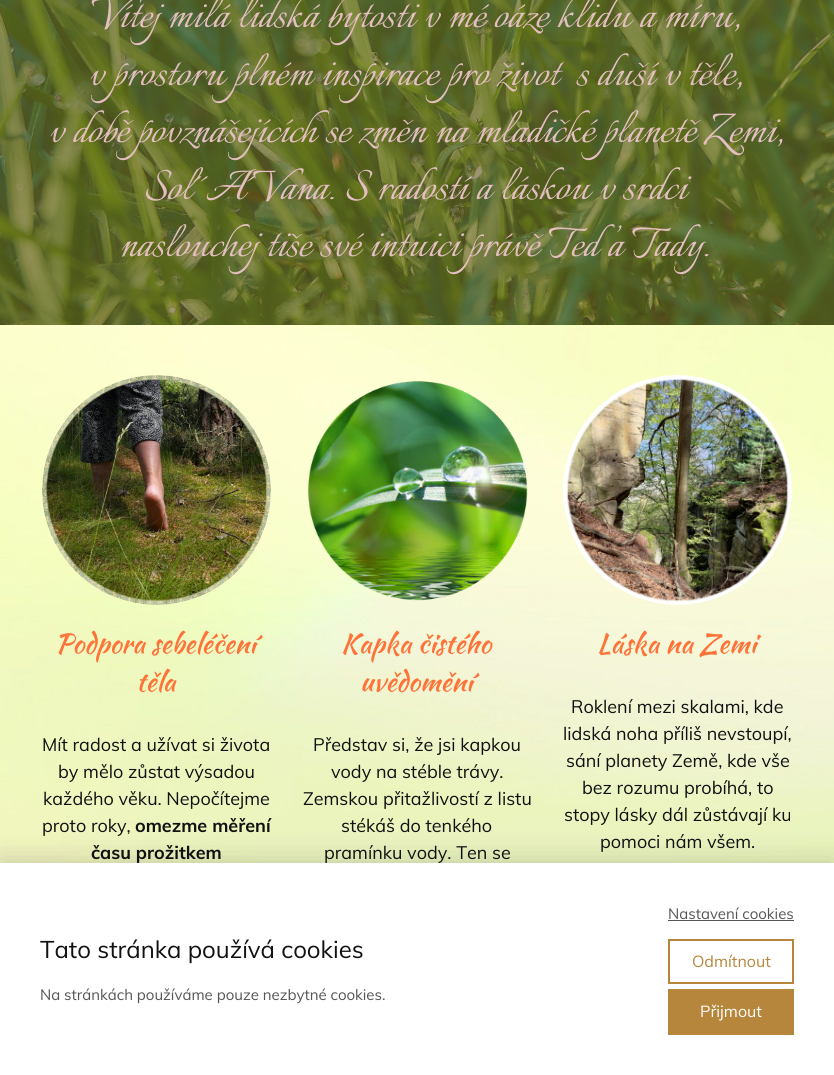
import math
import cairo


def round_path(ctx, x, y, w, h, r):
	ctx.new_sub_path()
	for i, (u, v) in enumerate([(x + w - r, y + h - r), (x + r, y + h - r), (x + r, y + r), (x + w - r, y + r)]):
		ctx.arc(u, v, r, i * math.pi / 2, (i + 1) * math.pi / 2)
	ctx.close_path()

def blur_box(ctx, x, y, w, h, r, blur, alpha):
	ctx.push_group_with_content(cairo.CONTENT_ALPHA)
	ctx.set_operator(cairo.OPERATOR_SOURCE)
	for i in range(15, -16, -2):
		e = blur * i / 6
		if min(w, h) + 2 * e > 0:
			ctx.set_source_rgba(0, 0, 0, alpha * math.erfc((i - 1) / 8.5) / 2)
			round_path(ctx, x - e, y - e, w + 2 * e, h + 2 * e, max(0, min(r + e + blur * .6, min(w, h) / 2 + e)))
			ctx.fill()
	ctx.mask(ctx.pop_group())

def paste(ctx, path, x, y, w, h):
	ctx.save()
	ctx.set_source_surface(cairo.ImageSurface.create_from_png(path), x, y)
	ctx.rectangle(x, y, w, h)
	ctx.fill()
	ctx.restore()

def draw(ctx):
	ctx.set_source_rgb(1, 1, 1)
	ctx.paint()
	paste(ctx, 'media/1.png', 0, 0, 834, 325)
	ctx.select_font_face('Italianno')
	ctx.set_font_size(52)
	ctx.set_source_rgb(0.89, 0.749, 0.749)
	for x, y, s in [
		(91, 27, 'Vítej milá lidská bytosti v mé oáze klidu a míru,'),
		(89, 85, 'v prostoru plném inspirace pro život  s duší v těle,'),
		(49, 142, 'v době povznášejících se změn na mladičké planetě Zemi,'),
		(144, 199, 'Sol´´A´Vana. S radostí a láskou v srdci'),
		(120, 256, 'naslouchej tiše své intuici právě Teď a Tady.'),
	]:
		ctx.move_to(x, y)
		ctx.show_text(s)
	paste(ctx, 'media/5.png', 0, 325, 834, 538)
	paste(ctx, 'media/2.png', 42, 375, 229, 230)
	ctx.select_font_face('Kaushan Script')
	ctx.set_font_size(27)
	ctx.set_source_rgb(0.992, 0.451, 0.227)
	ctx.move_to(55, 653)
	ctx.show_text('Podpora sebeléčení')
	ctx.move_to(136, 691)
	ctx.show_text('těla')
	ctx.select_font_face('Muli')
	ctx.set_font_size(18)
	ctx.set_source_rgb(0.067, 0.067, 0.067)
	for x, y, s in [
		(42, 751, 'Mít radost a užívat si života'),
		(58, 778, 'by mělo zůstat výsadou'),
		(43, 805, 'každého věku. Nepočítejme'),
		(42, 832, 'proto roky,'),
	]:
		ctx.move_to(x, y)
		ctx.show_text(s)
	ctx.select_font_face('Muli', cairo.FONT_SLANT_NORMAL, cairo.FONT_WEIGHT_BOLD)
	ctx.move_to(135, 832)
	ctx.show_text('omezme měření')
	ctx.move_to(91, 859)
	ctx.show_text('času prožitkem')
	paste(ctx, 'media/3.png', 308, 381, 220, 220)
	ctx.select_font_face('Kaushan Script')
	ctx.set_font_size(27)
	ctx.set_source_rgb(0.992, 0.451, 0.227)
	ctx.move_to(341, 653)
	ctx.show_text('Kapka čistého')
	ctx.move_to(360, 691)
	ctx.show_text('uvědomění')
	ctx.select_font_face('Muli')
	ctx.set_font_size(18)
	ctx.set_source_rgb(0.067, 0.067, 0.067)
	for x, y, s in [
		(313, 751, 'Představ si, že jsi kapkou'),
		(331, 778, 'vody na stéble trávy.'),
		(303, 805, 'Zemskou přitažlivostí z listu'),
		(341, 832, 'stékáš do tenkého'),
		(324, 859, 'pramínku vody. Ten se'),
	]:
		ctx.move_to(x, y)
		ctx.show_text(s)
	paste(ctx, 'media/4.png', 563, 375, 229, 230)
	ctx.select_font_face('Kaushan Script')
	ctx.set_font_size(27)
	ctx.set_source_rgb(0.992, 0.451, 0.227)
	ctx.move_to(597, 653)
	ctx.show_text('Láska na Zemi')
	ctx.select_font_face('Muli')
	ctx.set_font_size(18)
	ctx.set_source_rgb(0.067, 0.067, 0.067)
	for x, y, s in [
		(571, 713, 'Roklení mezi skalami, kde'),
		(563, 740, 'lidská noha příliš nevstoupí,'),
		(566, 767, 'sání planety Země, kde vše'),
		(582, 794, 'bez rozumu probíhá, to'),
		(564, 821, 'stopy lásky dál zůstávají ku'),
		(600, 848, 'pomoci nám všem.'),
	]:
		ctx.move_to(x, y)
		ctx.show_text(s)
	ctx.set_source_rgb(0, 0, 0)
	blur_box(ctx, 0, 863, 834, 212, 0, 15, 0.2)
	ctx.set_source_rgb(1, 1, 1)
	ctx.rectangle(0, 863, 834, 212)
	ctx.fill()
	ctx.set_font_size(24)
	ctx.set_source_rgb(0.067, 0.067, 0.067)
	ctx.move_to(40, 958)
	ctx.show_text('Tato stránka používá cookies')
	ctx.set_font_size(15)
	ctx.set_source_rgb(0.333, 0.333, 0.333)
	ctx.move_to(40, 1000)
	ctx.show_text('Na stránkách používáme pouze nezbytné cookies.')
	ctx.move_to(668, 919)
	ctx.show_text('Nastavení cookies')
	ctx.rectangle(668, 920, 126, 1)
	ctx.fill()
	ctx.rectangle(669, 940, 124, 43)
	ctx.set_source_rgb(0.71, 0.525, 0.235)
	ctx.stroke()
	ctx.set_font_size(16)
	ctx.move_to(692, 967)
	ctx.show_text('Odmítnout')
	ctx.rectangle(668, 989, 126, 46)
	ctx.fill()
	ctx.set_source_rgb(1, 1, 1)
	ctx.move_to(700, 1017)
	ctx.show_text('Přijmout')


surface = cairo.ImageSurface(cairo.FORMAT_RGB24, 834, 1075)
ctx = cairo.Context(surface)
options = cairo.FontOptions()
options.set_hint_metrics(cairo.HINT_METRICS_OFF)
options.set_hint_style(cairo.HINT_STYLE_NONE)
ctx.set_font_options(options)
ctx.set_miter_limit(4)
draw(ctx)
surface.write_to_png('image.png')
